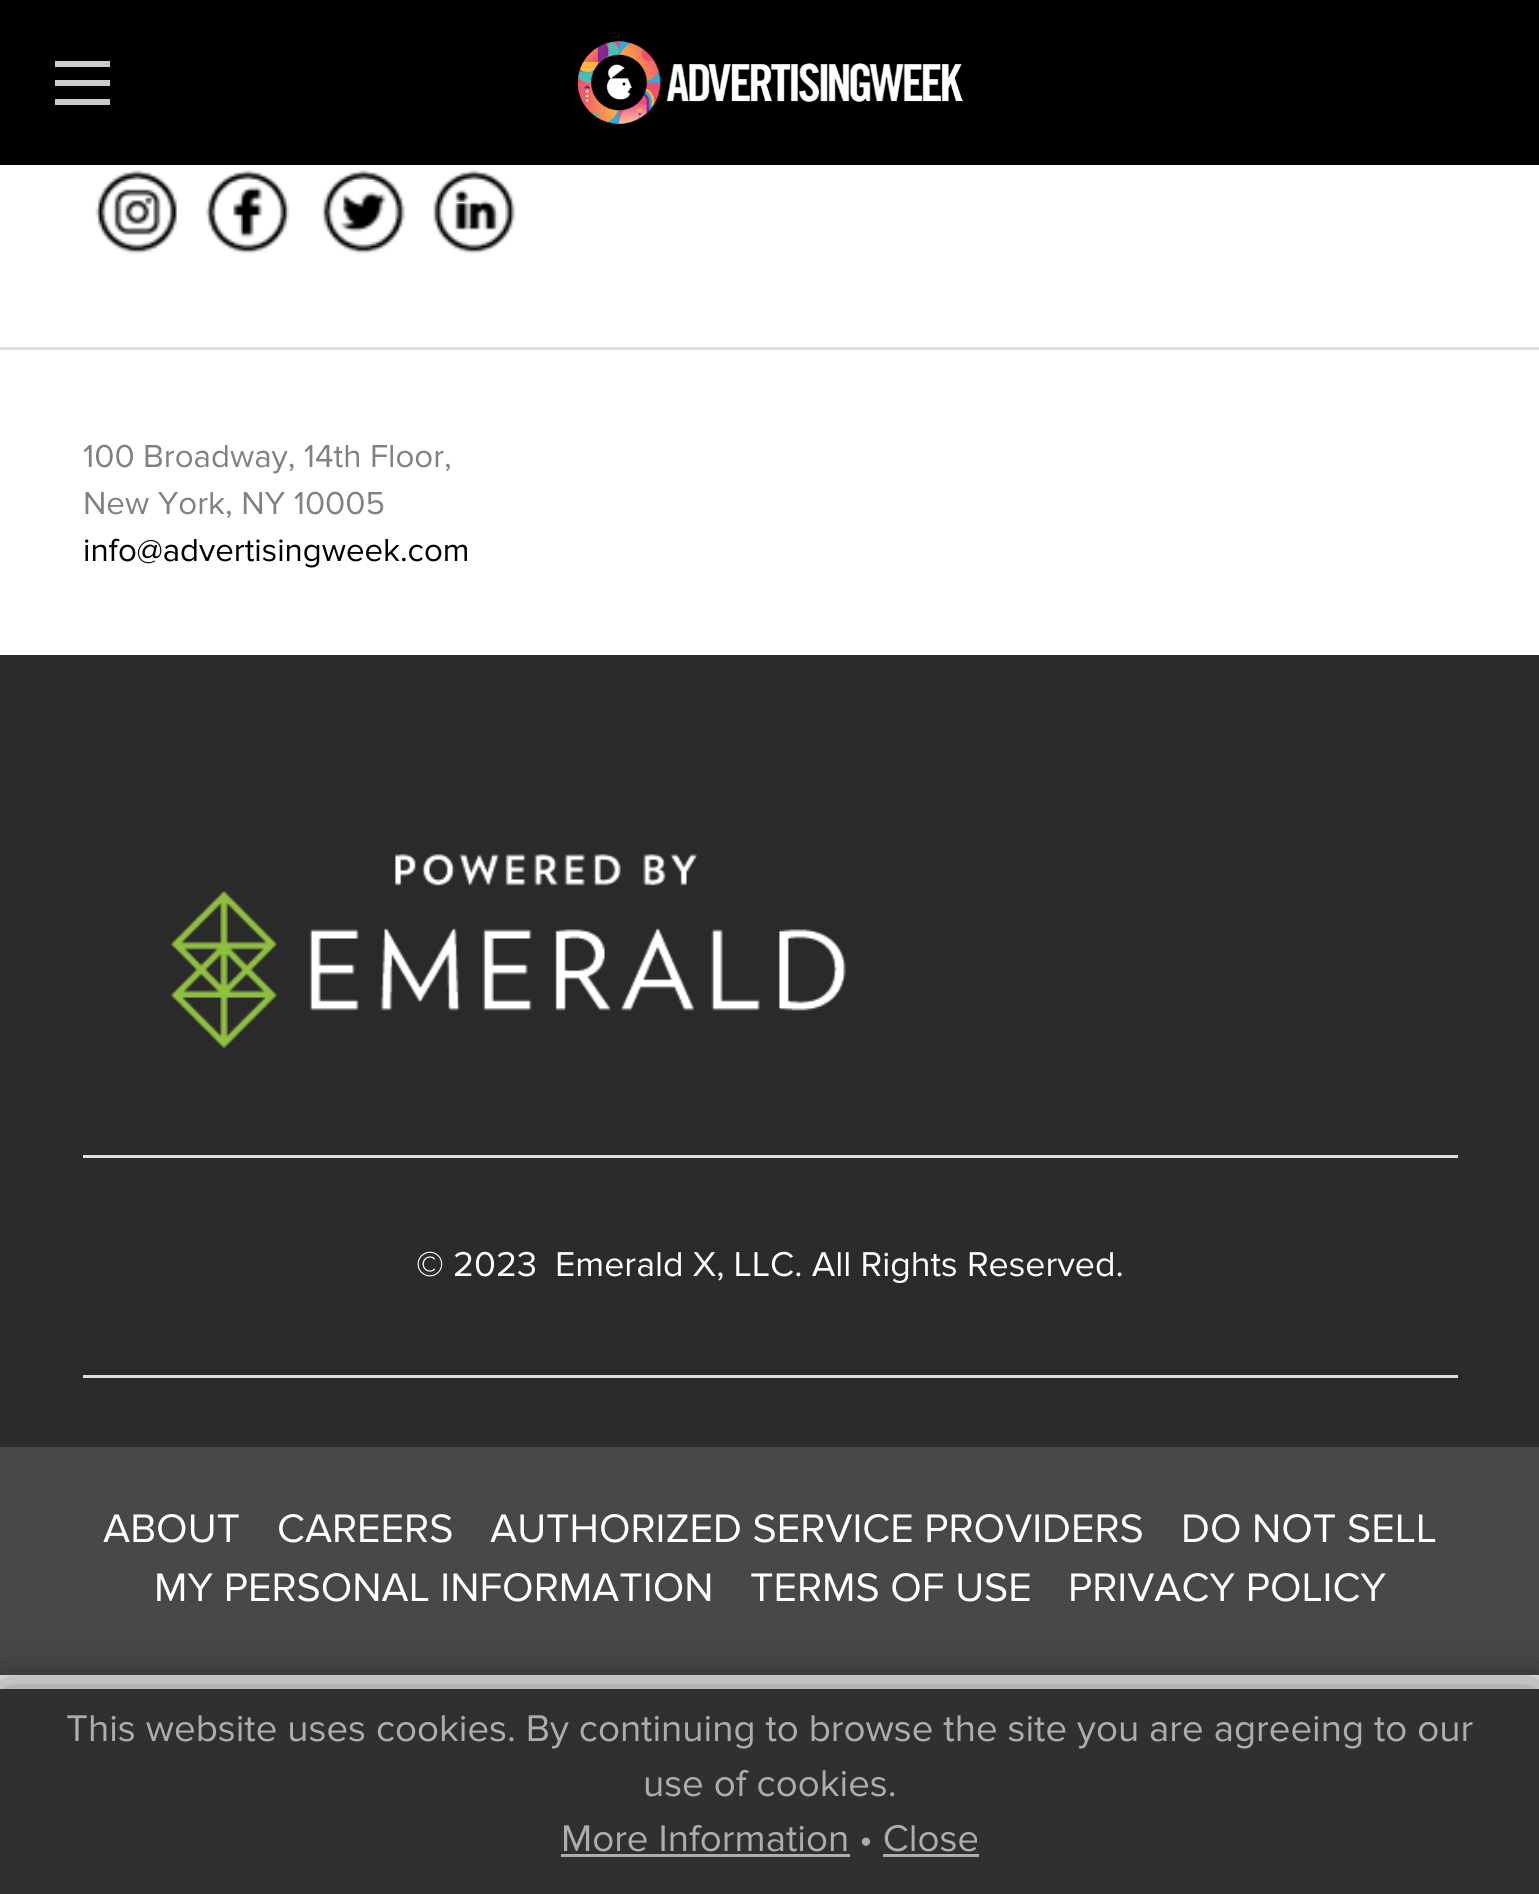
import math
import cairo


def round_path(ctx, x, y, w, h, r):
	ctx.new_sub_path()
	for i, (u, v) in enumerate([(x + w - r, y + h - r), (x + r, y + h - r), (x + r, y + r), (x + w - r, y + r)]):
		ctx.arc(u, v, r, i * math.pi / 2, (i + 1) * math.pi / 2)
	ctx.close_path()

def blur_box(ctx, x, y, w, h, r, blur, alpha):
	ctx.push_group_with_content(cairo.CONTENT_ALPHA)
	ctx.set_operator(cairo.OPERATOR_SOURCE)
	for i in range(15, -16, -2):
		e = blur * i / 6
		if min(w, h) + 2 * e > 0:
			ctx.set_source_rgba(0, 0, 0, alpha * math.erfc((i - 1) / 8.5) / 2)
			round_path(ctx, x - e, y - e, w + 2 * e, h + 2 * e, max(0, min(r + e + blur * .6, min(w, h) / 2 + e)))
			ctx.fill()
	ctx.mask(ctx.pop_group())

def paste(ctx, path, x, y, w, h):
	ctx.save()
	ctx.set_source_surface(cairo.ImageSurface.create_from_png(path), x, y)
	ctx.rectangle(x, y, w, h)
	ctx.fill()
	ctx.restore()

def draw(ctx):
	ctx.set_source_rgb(0.945, 0.945, 0.945)
	ctx.paint()
	ctx.set_source_rgb(0, 0, 0)
	ctx.rectangle(0, 0, 1539, 165)
	ctx.fill()
	ctx.set_source_rgb(0.796, 0.796, 0.796)
	ctx.rectangle(55, 80, 55, 6)
	ctx.rectangle(55, 61, 55, 6)
	ctx.rectangle(55, 99, 55, 6)
	ctx.fill()
	paste(ctx, 'media/1.png', 578, 41, 385, 83)
	ctx.set_source_rgb(1, 1, 1)
	ctx.rectangle(0, 165, 1539, 490)
	ctx.fill()
	ctx.set_source_rgb(0.875, 0.875, 0.875)
	ctx.rectangle(0, 347, 1539, 3)
	ctx.fill()
	paste(ctx, 'media/2.png', 95, 170, 82, 84)
	paste(ctx, 'media/3.png', 205, 170, 85, 84)
	paste(ctx, 'media/4.png', 321, 170, 85, 84)
	paste(ctx, 'media/5.png', 433, 170, 83, 84)
	ctx.select_font_face('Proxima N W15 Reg')
	ctx.set_font_size(33)
	ctx.set_source_rgb(0.506, 0.506, 0.506)
	ctx.move_to(83, 467)
	ctx.show_text('100 Broadway, 14th Floor,')
	ctx.move_to(83, 514)
	ctx.show_text('New York, NY 10005')
	ctx.set_source_rgb(0, 0, 0)
	ctx.move_to(83, 561)
	ctx.show_text('info@advertisingweek.com')
	ctx.set_source_rgb(0.169, 0.169, 0.169)
	ctx.rectangle(0, 655, 1539, 792)
	ctx.fill()
	ctx.set_source_rgb(0.875, 0.875, 0.875)
	ctx.rectangle(83, 1155, 1375, 3)
	ctx.fill()
	paste(ctx, 'media/6.png', 170, 854, 676, 194)
	ctx.rectangle(83, 1375, 1375, 3)
	ctx.fill()
	ctx.set_font_size(35.75)
	ctx.set_source_rgb(1, 1, 1)
	ctx.move_to(416, 1276)
	ctx.show_text('© 2023')
	ctx.move_to(555, 1276)
	ctx.show_text('Emerald X, LLC. All Rights Reserved.')
	ctx.set_source_rgb(0.282, 0.282, 0.282)
	ctx.rectangle(0, 1447, 1539, 228)
	ctx.fill()
	ctx.set_font_size(41.25)
	ctx.set_source_rgb(1, 1, 1)
	for x, y, s in [
		(103, 1542, 'ABOUT'),
		(277, 1542, 'CAREERS'),
		(490, 1542, 'AUTHORIZED SERVICE PROVIDERS'),
		(1181, 1542, 'DO NOT SELL'),
		(154, 1601, 'MY PERSONAL INFORMATION'),
		(750, 1601, 'TERMS OF USE'),
		(1068, 1601, 'PRIVACY POLICY'),
	]:
		ctx.move_to(x, y)
		ctx.show_text(s)
	ctx.set_source_rgb(0, 0, 0)
	blur_box(ctx, 0, 1689, 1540, 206, 0, 27.5, 0.53)
	ctx.set_source_rgb(0.188, 0.188, 0.188)
	ctx.rectangle(0, 1689, 1539, 205)
	ctx.fill()
	ctx.set_font_size(38.5)
	ctx.set_source_rgb(0.682, 0.678, 0.667)
	for x, y, s in [
		(66, 1741, 'This website uses cookies. By continuing to browse the site you are agreeing to our'),
		(643, 1796, 'use of cookies.'),
		(561, 1851, 'More Information • Close'),
	]:
		ctx.move_to(x, y)
		ctx.show_text(s)
	ctx.rectangle(561, 1854, 289, 3)
	ctx.fill()
	ctx.rectangle(883, 1854, 96, 3)
	ctx.fill()


surface = cairo.ImageSurface(cairo.FORMAT_RGB24, 1539, 1894)
ctx = cairo.Context(surface)
options = cairo.FontOptions()
options.set_hint_metrics(cairo.HINT_METRICS_OFF)
options.set_hint_style(cairo.HINT_STYLE_NONE)
ctx.set_font_options(options)
ctx.set_miter_limit(4)
draw(ctx)
surface.write_to_png('image.png')
